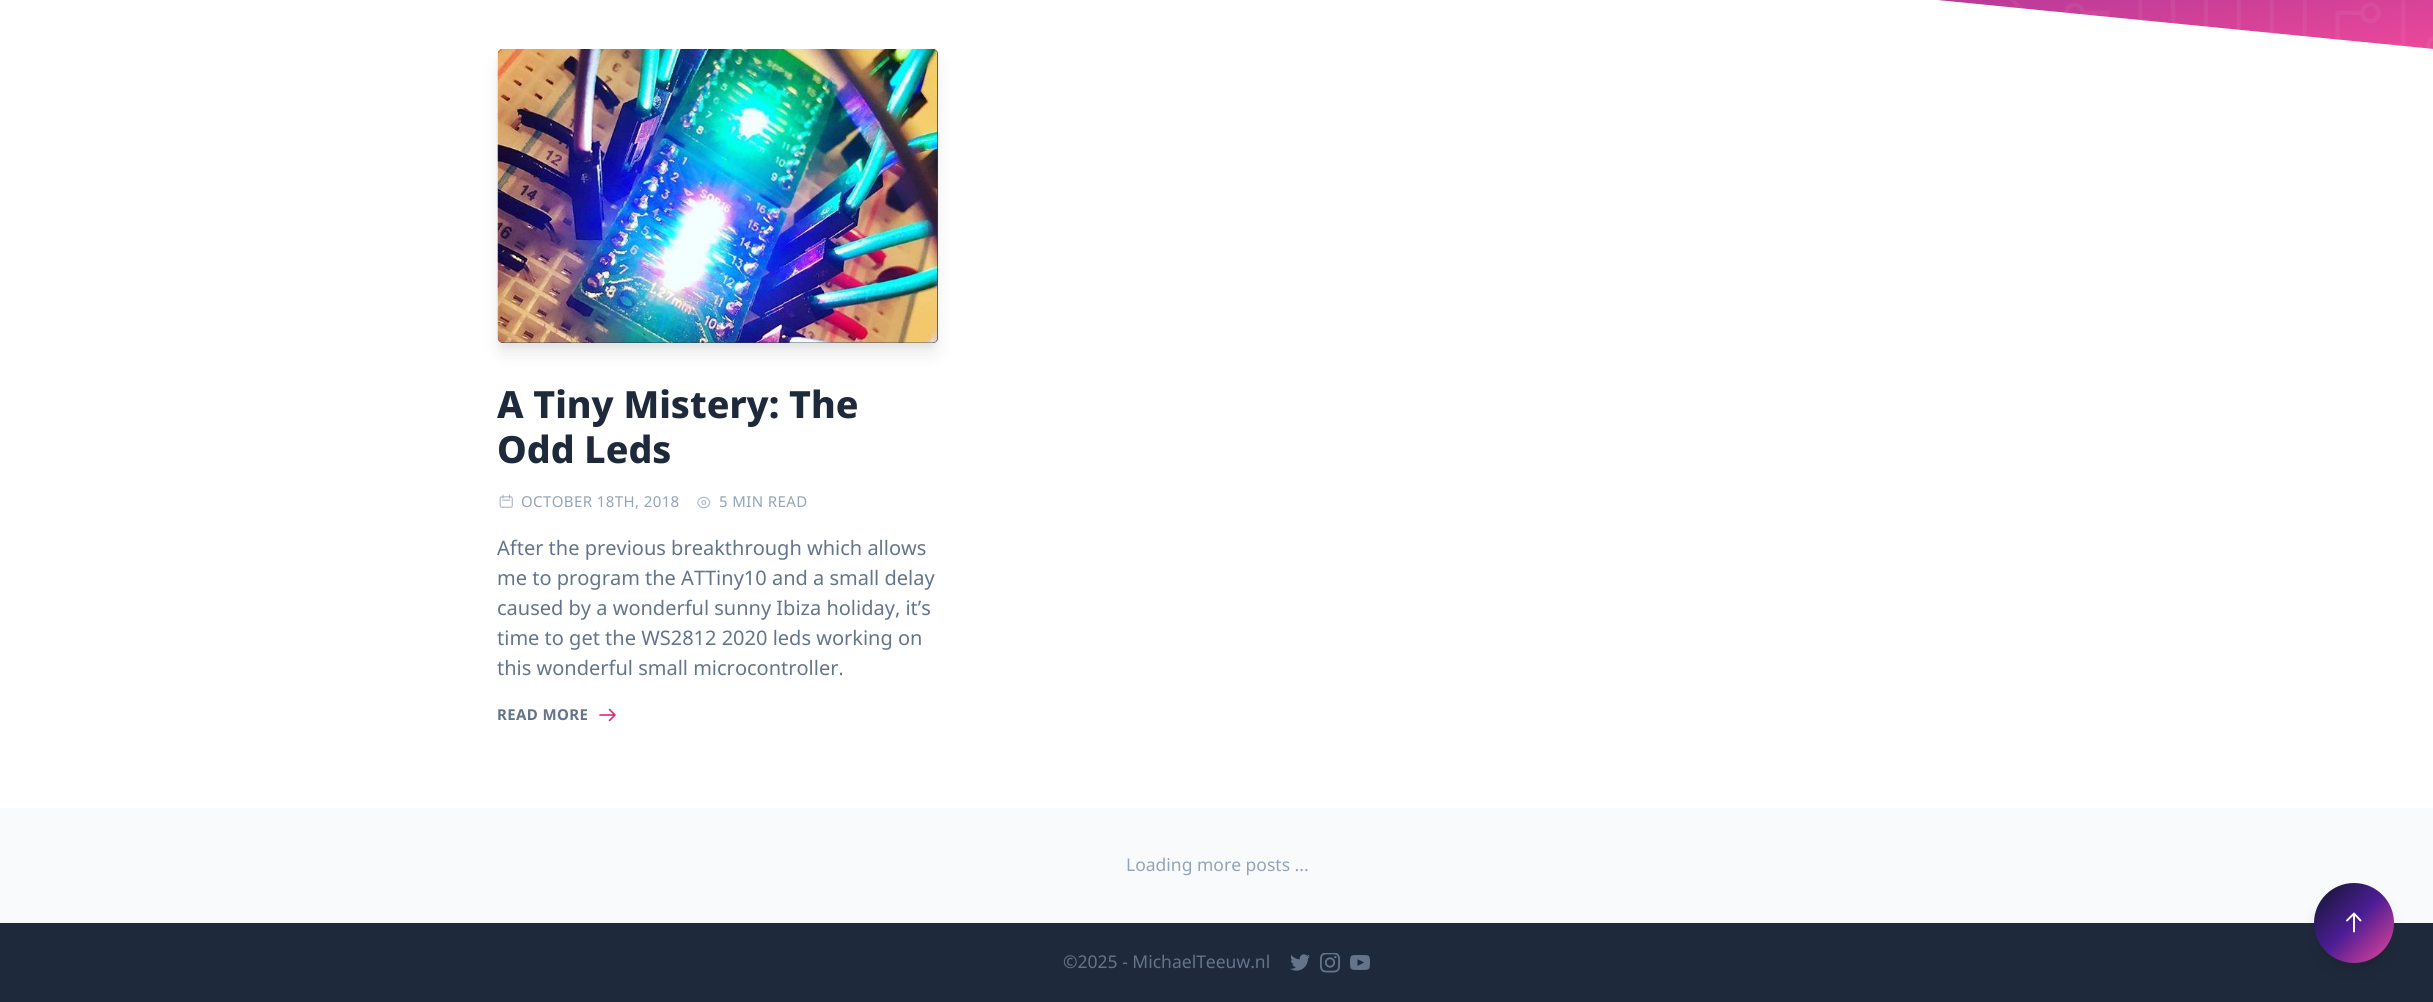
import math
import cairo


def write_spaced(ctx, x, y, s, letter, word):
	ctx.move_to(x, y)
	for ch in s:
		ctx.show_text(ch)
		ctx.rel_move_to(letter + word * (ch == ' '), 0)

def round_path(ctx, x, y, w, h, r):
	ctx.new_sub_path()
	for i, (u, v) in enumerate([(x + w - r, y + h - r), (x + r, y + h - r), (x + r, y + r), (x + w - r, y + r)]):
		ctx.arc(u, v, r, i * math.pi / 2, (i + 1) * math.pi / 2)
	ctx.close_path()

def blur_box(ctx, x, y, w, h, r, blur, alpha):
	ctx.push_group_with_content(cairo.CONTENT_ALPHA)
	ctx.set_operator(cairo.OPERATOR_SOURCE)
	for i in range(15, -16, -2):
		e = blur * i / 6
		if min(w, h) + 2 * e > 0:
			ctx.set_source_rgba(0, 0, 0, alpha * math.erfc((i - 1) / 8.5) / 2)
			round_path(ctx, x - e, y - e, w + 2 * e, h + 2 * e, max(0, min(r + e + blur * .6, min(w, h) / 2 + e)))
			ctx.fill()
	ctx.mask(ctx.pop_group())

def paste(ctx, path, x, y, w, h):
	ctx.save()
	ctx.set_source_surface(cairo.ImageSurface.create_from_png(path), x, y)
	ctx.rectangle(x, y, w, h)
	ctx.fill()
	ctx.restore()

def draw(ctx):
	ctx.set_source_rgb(1, 1, 1)
	ctx.paint()
	gradient = cairo.LinearGradient(1153, -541, 1281, 238)
	gradient.add_color_stop_rgba(0, 0.059, 0.09, 0.165, 1)
	gradient.add_color_stop_rgba(0.5, 0.298, 0.114, 0.584, 1)
	gradient.add_color_stop_rgba(1, 0.925, 0.282, 0.6, 1)
	ctx.set_source(gradient)
	ctx.rectangle(1937, 0, 496, 49)
	ctx.fill()
	paste(ctx, 'media/1.png', 2010, 0, 423, 49)
	ctx.set_source_rgb(1, 1, 1)
	ctx.new_path()
	ctx.move_to(0, 49)
	ctx.line_to(0, -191)
	ctx.line_to(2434, 49)
	ctx.close_path()
	ctx.fill()
	ctx.set_source_rgb(0, 0, 0)
	blur_box(ctx, 500, 56, 435, 289, 2.5, 4, 0.05)
	blur_box(ctx, 501, 65, 433, 286, 1, 9.5, 0.1)
	gradient = cairo.LinearGradient(582, -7.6, 853, 399)
	gradient.add_color_stop_rgba(0, 0.118, 0.161, 0.231, 1)
	gradient.add_color_stop_rgba(1, 0.2, 0.255, 0.333, 1)
	ctx.set_source(gradient)
	round_path(ctx, 498, 49, 440, 294, 5)
	ctx.fill()
	paste(ctx, 'media/2.png', 497, 49, 441, 294)
	ctx.select_font_face('Noto Sans ExtraBold')
	ctx.set_font_size(37.5)
	ctx.set_source_rgb(0.118, 0.161, 0.231)
	ctx.move_to(497, 418)
	ctx.show_text('A Tiny Mistery: The')
	ctx.move_to(497, 463)
	ctx.show_text('Odd Leds')
	paste(ctx, 'media/3.png', 499, 494, 14, 14)
	ctx.select_font_face('Noto Sans')
	ctx.set_font_size(15)
	ctx.set_source_rgb(0.58, 0.639, 0.722)
	write_spaced(ctx, 521, 507, 'OCTOBER 18TH, 2018', 0.4, 0)
	paste(ctx, 'media/4.png', 697, 496, 14, 13)
	write_spaced(ctx, 719, 507, '5 MIN READ', 0.4, 0)
	ctx.set_font_size(20)
	ctx.set_source_rgb(0.392, 0.455, 0.545)
	for x, y, s in [
		(497, 555, 'After the previous breakthrough which allows'),
		(497, 585, 'me to program the ATTiny10 and a small delay'),
		(497, 615, 'caused by a wonderful sunny Ibiza holiday, it’s'),
		(497, 645, 'time to get the WS2812 2020 leds working on'),
		(497, 675, 'this wonderful small microcontroller.'),
	]:
		ctx.move_to(x, y)
		ctx.show_text(s)
	ctx.select_font_face('Noto Sans', cairo.FONT_SLANT_NORMAL, cairo.FONT_WEIGHT_BOLD)
	ctx.set_font_size(15)
	write_spaced(ctx, 497, 720, 'READ MORE', 0.4, 0)
	ctx.new_path()
	ctx.move_to(609.5, 709.5)
	ctx.line_to(615, 715)
	ctx.line_to(609.5, 720.5)
	ctx.move_to(615, 715)
	ctx.line_to(600, 715)
	ctx.set_source_rgb(0.859, 0.153, 0.467)
	ctx.set_line_width(1.6)
	ctx.set_line_cap(cairo.LINE_CAP_ROUND)
	ctx.set_line_join(cairo.LINE_JOIN_ROUND)
	ctx.stroke()
	ctx.set_source_rgb(0.973, 0.98, 0.988)
	ctx.rectangle(0, 808, 2433, 115)
	ctx.fill()
	ctx.select_font_face('Noto Sans')
	ctx.set_font_size(17.5)
	ctx.set_source_rgb(0.58, 0.639, 0.722)
	ctx.move_to(1126, 871)
	ctx.show_text('Loading more posts ...')
	ctx.set_source_rgb(0.118, 0.161, 0.231)
	ctx.rectangle(0, 923, 2433, 79)
	ctx.fill()
	ctx.set_source_rgb(0.392, 0.455, 0.545)
	ctx.move_to(1063, 968)
	ctx.show_text('©2025 - MichaelTeeuw.nl')
	paste(ctx, 'media/5.png', 1290, 954, 20, 17)
	paste(ctx, 'media/6.png', 1320, 953, 20, 20)
	paste(ctx, 'media/7.png', 1350, 955, 20, 15)
	ctx.set_source_rgb(0, 0, 0)
	blur_box(ctx, 2316, 890, 75, 75, 37.5, 4, 0.05)
	blur_box(ctx, 2318, 899, 72, 72, 36, 9.5, 0.1)
	gradient = cairo.LinearGradient(2314, 883, 2394, 963)
	gradient.add_color_stop_rgba(0, 0.059, 0.09, 0.165, 1)
	gradient.add_color_stop_rgba(0.5, 0.298, 0.114, 0.584, 1)
	gradient.add_color_stop_rgba(1, 0.925, 0.282, 0.6, 1)
	ctx.set_source(gradient)
	ctx.arc(2354, 923, 40, 0, 2 * math.pi)
	ctx.fill()
	ctx.new_path()
	ctx.move_to(2360.5, 920.5)
	ctx.line_to(2354, 913.5)
	ctx.line_to(2347, 920.5)
	ctx.move_to(2354, 931.5)
	ctx.line_to(2354, 914.5)
	ctx.set_source_rgb(1, 1, 1)
	ctx.set_line_width(1.9)
	ctx.stroke()


surface = cairo.ImageSurface(cairo.FORMAT_RGB24, 2433, 1002)
ctx = cairo.Context(surface)
options = cairo.FontOptions()
options.set_hint_metrics(cairo.HINT_METRICS_OFF)
options.set_hint_style(cairo.HINT_STYLE_NONE)
ctx.set_font_options(options)
ctx.set_miter_limit(4)
draw(ctx)
surface.write_to_png('image.png')
